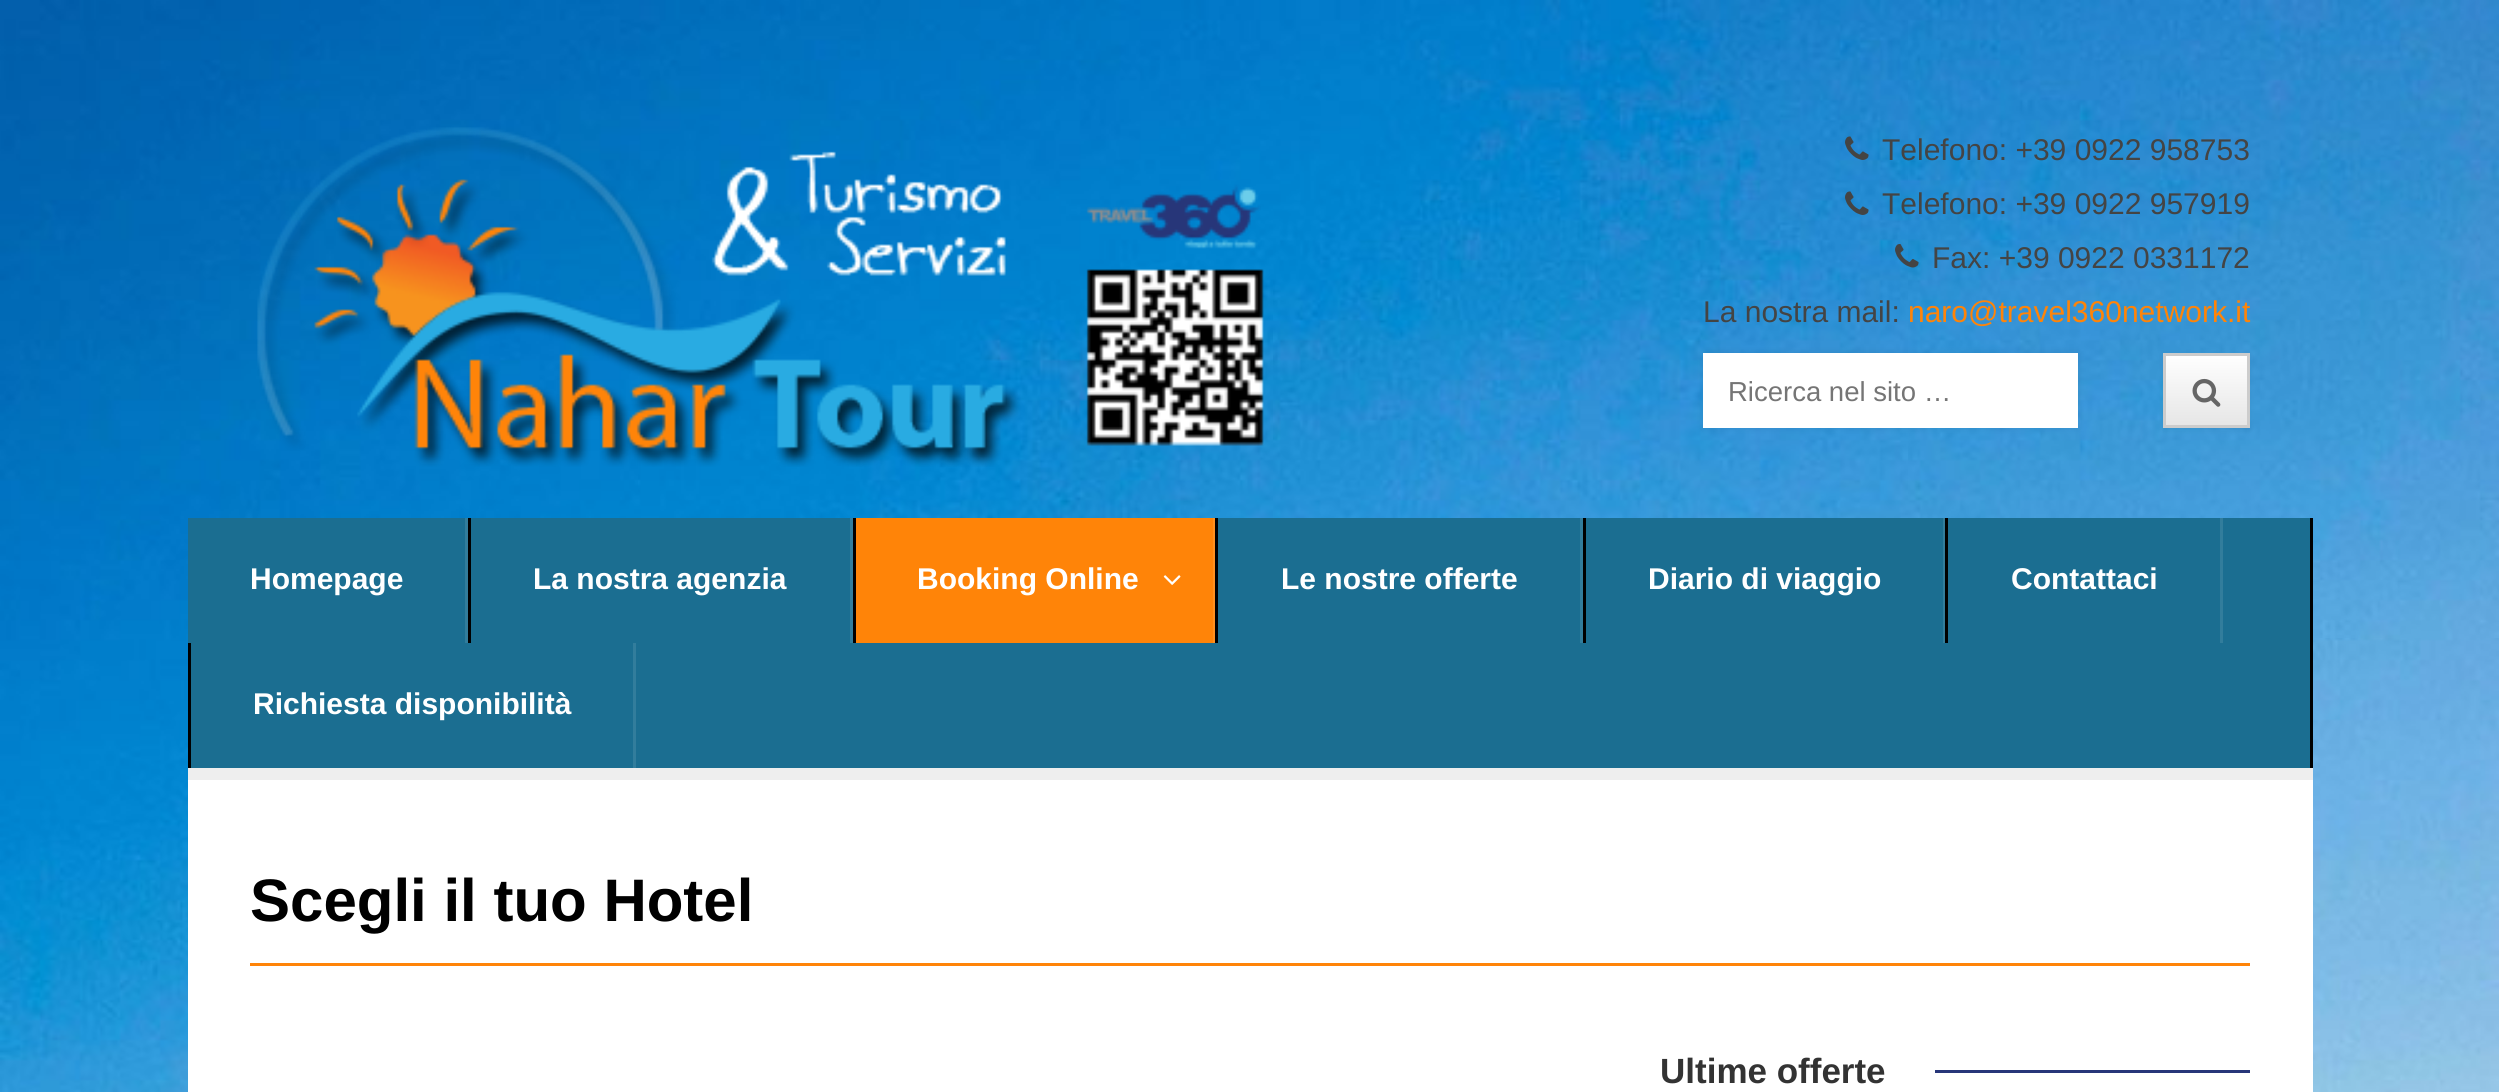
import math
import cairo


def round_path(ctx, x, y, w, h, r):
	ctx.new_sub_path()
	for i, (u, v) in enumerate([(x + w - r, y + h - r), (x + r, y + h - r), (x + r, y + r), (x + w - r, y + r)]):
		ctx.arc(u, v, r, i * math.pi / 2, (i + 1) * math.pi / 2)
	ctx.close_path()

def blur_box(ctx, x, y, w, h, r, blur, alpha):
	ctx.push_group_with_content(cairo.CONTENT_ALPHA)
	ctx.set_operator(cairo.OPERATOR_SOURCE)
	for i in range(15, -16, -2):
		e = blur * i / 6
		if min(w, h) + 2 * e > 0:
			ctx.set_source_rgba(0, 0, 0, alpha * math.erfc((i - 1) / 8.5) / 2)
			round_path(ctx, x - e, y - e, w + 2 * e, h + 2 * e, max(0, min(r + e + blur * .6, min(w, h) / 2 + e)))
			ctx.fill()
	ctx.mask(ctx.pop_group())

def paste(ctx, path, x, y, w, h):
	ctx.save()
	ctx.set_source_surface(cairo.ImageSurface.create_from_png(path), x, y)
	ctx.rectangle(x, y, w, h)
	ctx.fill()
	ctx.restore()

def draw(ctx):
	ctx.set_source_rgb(1, 1, 1)
	ctx.paint()
	paste(ctx, 'media/1.png', 0, 0, 2499, 1092)
	paste(ctx, 'media/2.png', 257, 127, 1007, 340)
	paste(ctx, 'media/3.png', 1845, 136, 24, 24)
	ctx.select_font_face('Liberation Sans')
	ctx.set_font_size(30)
	ctx.set_source_rgb(0.267, 0.267, 0.267)
	ctx.move_to(1882, 160)
	ctx.show_text('Telefono: +39 0922 958753')
	paste(ctx, 'media/4.png', 1845, 191, 24, 24)
	ctx.move_to(1882, 214)
	ctx.show_text('Telefono: +39 0922 957919')
	paste(ctx, 'media/5.png', 1895, 244, 24, 24)
	ctx.move_to(1932, 268)
	ctx.show_text('Fax: +39 0922 0331172')
	ctx.move_to(1703, 322)
	ctx.show_text('La nostra mail:')
	ctx.set_source_rgb(1, 0.518, 0.035)
	ctx.move_to(1908, 322)
	ctx.show_text('naro@travel360network.it')
	ctx.set_source_rgb(0, 0, 0)
	blur_box(ctx, 1703, 353, 375, 75, 0, 4, 0.08)
	ctx.set_source_rgb(1, 1, 1)
	ctx.rectangle(1703, 353, 375, 75)
	ctx.fill()
	ctx.set_font_size(27.5)
	ctx.set_source_rgb(0.459, 0.459, 0.459)
	ctx.move_to(1728, 401)
	ctx.show_text('Ricerca nel sito …')
	ctx.set_source_rgb(0, 0, 0)
	blur_box(ctx, 2163, 355, 87, 75, 0, 2.5, 0.05)
	gradient = cairo.LinearGradient(2206, 355, 2206, 425)
	gradient.add_color_stop_rgba(0, 1, 1, 1, 1)
	gradient.add_color_stop_rgba(1, 0.902, 0.902, 0.902, 1)
	ctx.set_source(gradient)
	ctx.rectangle(2166, 356, 81, 69)
	ctx.fill()
	ctx.rectangle(2164.5, 354.5, 84, 72)
	ctx.set_source_rgb(0.8, 0.8, 0.8)
	ctx.set_line_width(3)
	ctx.stroke()
	paste(ctx, 'media/6.png', 2192, 378, 29, 29)
	ctx.set_source_rgb(0.106, 0.431, 0.569)
	ctx.rectangle(188, 518, 2122, 250)
	ctx.fill()
	ctx.set_source_rgb(0.933, 0.933, 0.933)
	ctx.rectangle(188, 768, 2125, 12)
	ctx.fill()
	ctx.set_source_rgb(0, 0, 0)
	ctx.rectangle(2310, 518, 3, 250)
	ctx.fill()
	ctx.set_source_rgb(0.196, 0.49, 0.612)
	ctx.rectangle(465, 518, 3, 125)
	ctx.fill()
	ctx.select_font_face('Liberation Sans', cairo.FONT_SLANT_NORMAL, cairo.FONT_WEIGHT_BOLD)
	ctx.set_font_size(30)
	ctx.set_source_rgb(1, 1, 1)
	ctx.move_to(250, 589)
	ctx.show_text('Homepage')
	ctx.set_source_rgb(0.196, 0.49, 0.612)
	ctx.rectangle(850, 518, 3, 125)
	ctx.fill()
	ctx.set_source_rgb(0, 0, 0)
	ctx.rectangle(468, 518, 3, 125)
	ctx.fill()
	ctx.set_source_rgb(1, 1, 1)
	ctx.move_to(533, 589)
	ctx.show_text('La nostra agenzia')
	ctx.set_source_rgb(1, 0.518, 0.035)
	ctx.rectangle(856, 518, 359, 125)
	ctx.fill()
	ctx.set_source_rgba(1, 1, 1, 0.1)
	ctx.rectangle(1213, 518, 2, 125)
	ctx.fill()
	ctx.set_source_rgb(0, 0, 0)
	ctx.rectangle(853, 518, 3, 125)
	ctx.fill()
	ctx.set_source_rgb(1, 1, 1)
	ctx.move_to(917, 589)
	ctx.show_text('Booking Online')
	paste(ctx, 'media/7.png', 1163, 575, 18, 10)
	ctx.set_source_rgb(0.196, 0.49, 0.612)
	ctx.rectangle(1580, 518, 3, 125)
	ctx.fill()
	ctx.set_source_rgb(0, 0, 0)
	ctx.rectangle(1215, 518, 3, 125)
	ctx.fill()
	ctx.set_source_rgb(1, 1, 1)
	ctx.move_to(1281, 589)
	ctx.show_text('Le nostre offerte')
	ctx.set_source_rgb(0.196, 0.49, 0.612)
	ctx.rectangle(1943, 518, 2, 125)
	ctx.fill()
	ctx.set_source_rgb(0, 0, 0)
	ctx.rectangle(1583, 518, 3, 125)
	ctx.fill()
	ctx.set_source_rgb(1, 1, 1)
	ctx.move_to(1648, 589)
	ctx.show_text('Diario di viaggio')
	ctx.set_source_rgb(0.196, 0.49, 0.612)
	ctx.rectangle(2220, 518, 3, 125)
	ctx.fill()
	ctx.set_source_rgb(0, 0, 0)
	ctx.rectangle(1945, 518, 3, 125)
	ctx.fill()
	ctx.set_source_rgb(1, 1, 1)
	ctx.move_to(2011, 589)
	ctx.show_text('Contattaci')
	ctx.set_source_rgb(0.196, 0.49, 0.612)
	ctx.rectangle(633, 643, 3, 125)
	ctx.fill()
	ctx.set_source_rgb(0, 0, 0)
	ctx.rectangle(188, 643, 3, 125)
	ctx.fill()
	ctx.set_source_rgb(1, 1, 1)
	ctx.move_to(253, 714)
	ctx.show_text('Richiesta disponibilità')
	ctx.rectangle(188, 780, 2125, 312)
	ctx.fill()
	ctx.set_source_rgb(1, 0.518, 0.035)
	ctx.rectangle(250, 963, 2000, 3)
	ctx.fill()
	ctx.set_font_size(60)
	ctx.set_source_rgb(0, 0, 0)
	ctx.move_to(250, 921)
	ctx.show_text('Scegli il tuo Hotel')
	ctx.set_source_rgb(0.153, 0.212, 0.475)
	ctx.rectangle(1935, 1070, 315, 3)
	ctx.fill()
	ctx.set_font_size(35)
	ctx.set_source_rgb(0.2, 0.2, 0.2)
	ctx.move_to(1660, 1083)
	ctx.show_text('Ultime offerte')


surface = cairo.ImageSurface(cairo.FORMAT_RGB24, 2499, 1092)
ctx = cairo.Context(surface)
options = cairo.FontOptions()
options.set_hint_metrics(cairo.HINT_METRICS_OFF)
options.set_hint_style(cairo.HINT_STYLE_NONE)
ctx.set_font_options(options)
ctx.set_miter_limit(4)
draw(ctx)
surface.write_to_png('image.png')
